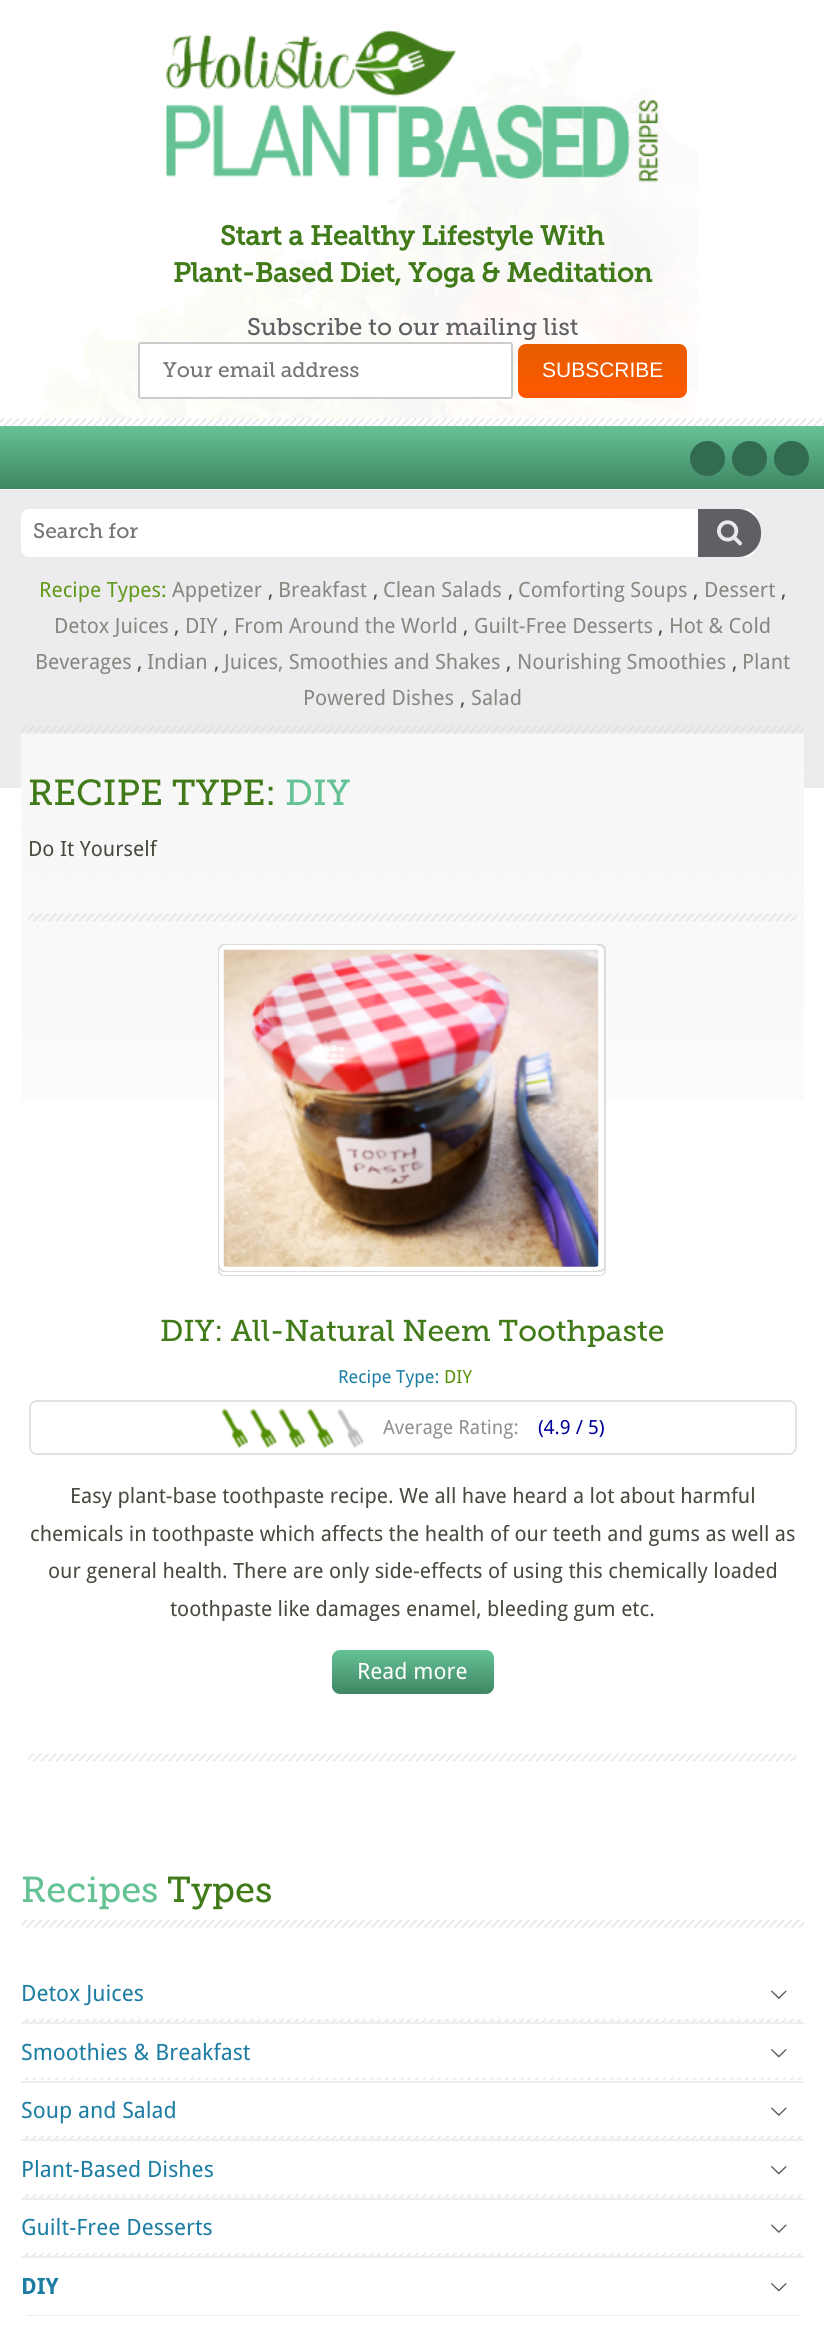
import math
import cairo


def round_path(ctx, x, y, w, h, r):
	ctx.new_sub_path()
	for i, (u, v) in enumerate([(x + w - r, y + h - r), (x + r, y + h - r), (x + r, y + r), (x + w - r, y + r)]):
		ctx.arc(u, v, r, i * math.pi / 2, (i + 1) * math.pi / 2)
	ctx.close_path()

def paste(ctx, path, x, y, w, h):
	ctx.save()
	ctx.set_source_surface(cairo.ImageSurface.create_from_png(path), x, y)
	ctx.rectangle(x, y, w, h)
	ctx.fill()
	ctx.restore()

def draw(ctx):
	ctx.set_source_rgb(1, 1, 1)
	ctx.paint()
	paste(ctx, 'media/2.png', 37, 43, 661, 376)
	paste(ctx, 'media/1.png', 166, 30, 493, 152)
	ctx.select_font_face('Museo Slab', cairo.FONT_SLANT_NORMAL, cairo.FONT_WEIGHT_BOLD)
	ctx.set_font_size(27)
	ctx.set_source_rgb(0.255, 0.478, 0.094)
	ctx.move_to(220, 245)
	ctx.show_text('Start a Healthy Lifestyle With')
	ctx.move_to(173, 282)
	ctx.show_text('Plant-Based Diet, Yoga & Meditation')
	ctx.select_font_face('Museo Slab')
	ctx.set_font_size(24)
	ctx.set_source_rgb(0.369, 0.376, 0.388)
	ctx.move_to(247, 335)
	ctx.show_text('Subscribe to our mailing list')
	ctx.set_source_rgb(1, 1, 1)
	round_path(ctx, 139, 343, 373, 55, 2)
	ctx.fill_preserve()
	ctx.set_source_rgb(0.8, 0.8, 0.8)
	ctx.stroke()
	ctx.set_font_size(21)
	ctx.set_source_rgb(0.459, 0.459, 0.459)
	ctx.move_to(163, 377)
	ctx.show_text('Your email address')
	gradient = cairo.LinearGradient(602, 344, 602, 398)
	gradient.add_color_stop_rgba(0, 0.902, 0.365, 0, 1)
	gradient.add_color_stop_rgba(1, 1, 0.345, 0, 1)
	ctx.set_source(gradient)
	round_path(ctx, 518, 344, 169, 54, 8)
	ctx.fill()
	ctx.select_font_face('Liberation Sans')
	ctx.set_source_rgb(1, 1, 1)
	ctx.move_to(542, 377)
	ctx.show_text('SUBSCRIBE')
	paste(ctx, 'media/3.png', 0, 418, 824, 8)
	gradient = cairo.LinearGradient(413, 426, 413, 489)
	gradient.add_color_stop_rgba(0, 0.396, 0.761, 0.584, 1)
	gradient.add_color_stop_rgba(1, 0.247, 0.525, 0.388, 1)
	ctx.set_source(gradient)
	ctx.rectangle(0, 426, 824, 63)
	ctx.fill()
	ctx.set_source_rgb(0.196, 0.42, 0.31)
	ctx.arc(707.5, 458.5, 17.5, 0, 2 * math.pi)
	ctx.fill()
	ctx.arc(749.5, 458.5, 17.5, 0, 2 * math.pi)
	ctx.fill()
	ctx.arc(791.5, 458.5, 17.5, 0, 2 * math.pi)
	ctx.fill()
	ctx.set_source_rgb(0.922, 0.925, 0.933)
	ctx.rectangle(0, 490, 824, 298)
	ctx.fill()
	paste(ctx, 'media/6.png', 21, 733, 783, 368)
	paste(ctx, 'media/4.png', 21, 726, 783, 8)
	ctx.set_source_rgb(1, 1, 1)
	round_path(ctx, 21, 509, 734, 48, 8)
	ctx.fill()
	ctx.select_font_face('Museo Slab')
	ctx.set_source_rgb(0.459, 0.459, 0.459)
	ctx.move_to(33, 538)
	ctx.show_text('Search for')
	ctx.set_source_rgb(0.369, 0.376, 0.388)
	ctx.new_path()
	ctx.move_to(698, 509)
	ctx.line_to(738, 509)
	ctx.curve_to(750.5, 509, 761, 519.5, 761, 532)
	ctx.line_to(761, 534)
	ctx.curve_to(761, 546.5, 750.5, 557, 738, 557)
	ctx.line_to(698, 557)
	ctx.close_path()
	ctx.fill()
	paste(ctx, 'media/5.png', 717, 520, 25, 26)
	ctx.select_font_face('Droid Sans')
	ctx.set_source_rgb(0.388, 0.6, 0.106)
	ctx.move_to(39, 597)
	ctx.show_text('Recipe Types:')
	ctx.set_source_rgb(0.522, 0.537, 0.502)
	ctx.move_to(172, 597)
	ctx.show_text('Appetizer')
	ctx.set_source_rgb(0.275, 0.294, 0.247)
	ctx.move_to(268, 597)
	ctx.show_text(',')
	ctx.set_source_rgb(0.522, 0.537, 0.502)
	ctx.move_to(278, 597)
	ctx.show_text('Breakfast')
	ctx.set_source_rgb(0.275, 0.294, 0.247)
	ctx.move_to(373, 597)
	ctx.show_text(',')
	ctx.set_source_rgb(0.522, 0.537, 0.502)
	ctx.move_to(383, 597)
	ctx.show_text('Clean Salads')
	ctx.set_source_rgb(0.275, 0.294, 0.247)
	ctx.move_to(508, 597)
	ctx.show_text(',')
	ctx.set_source_rgb(0.522, 0.537, 0.502)
	ctx.move_to(518, 597)
	ctx.show_text('Comforting Soups')
	ctx.set_source_rgb(0.275, 0.294, 0.247)
	ctx.move_to(693, 597)
	ctx.show_text(',')
	ctx.set_source_rgb(0.522, 0.537, 0.502)
	ctx.move_to(704, 597)
	ctx.show_text('Dessert')
	ctx.set_source_rgb(0.275, 0.294, 0.247)
	ctx.move_to(781, 597)
	ctx.show_text(',')
	ctx.set_source_rgb(0.522, 0.537, 0.502)
	ctx.move_to(54, 633)
	ctx.show_text('Detox Juices')
	ctx.set_source_rgb(0.275, 0.294, 0.247)
	ctx.move_to(174, 633)
	ctx.show_text(',')
	ctx.set_source_rgb(0.522, 0.537, 0.502)
	ctx.move_to(185, 633)
	ctx.show_text('DIY')
	ctx.set_source_rgb(0.275, 0.294, 0.247)
	ctx.move_to(223, 633)
	ctx.show_text(',')
	ctx.set_source_rgb(0.522, 0.537, 0.502)
	ctx.move_to(234, 633)
	ctx.show_text('From Around the World')
	ctx.set_source_rgb(0.275, 0.294, 0.247)
	ctx.move_to(463, 633)
	ctx.show_text(',')
	ctx.set_source_rgb(0.522, 0.537, 0.502)
	ctx.move_to(474, 633)
	ctx.show_text('Guilt-Free Desserts')
	ctx.set_source_rgb(0.275, 0.294, 0.247)
	ctx.move_to(658, 633)
	ctx.show_text(',')
	ctx.set_source_rgb(0.522, 0.537, 0.502)
	ctx.move_to(669, 633)
	ctx.show_text('Hot & Cold')
	ctx.move_to(35, 669)
	ctx.show_text('Beverages')
	ctx.set_source_rgb(0.275, 0.294, 0.247)
	ctx.move_to(137, 669)
	ctx.show_text(',')
	ctx.set_source_rgb(0.522, 0.537, 0.502)
	ctx.move_to(147, 669)
	ctx.show_text('Indian')
	ctx.set_source_rgb(0.275, 0.294, 0.247)
	ctx.move_to(214, 669)
	ctx.show_text(',')
	ctx.set_source_rgb(0.522, 0.537, 0.502)
	ctx.move_to(224, 669)
	ctx.show_text('Juices, Smoothies and Shakes')
	ctx.set_source_rgb(0.275, 0.294, 0.247)
	ctx.move_to(506, 669)
	ctx.show_text(',')
	ctx.set_source_rgb(0.522, 0.537, 0.502)
	ctx.move_to(517, 669)
	ctx.show_text('Nourishing Smoothies')
	ctx.set_source_rgb(0.275, 0.294, 0.247)
	ctx.move_to(732, 669)
	ctx.show_text(',')
	ctx.set_source_rgb(0.522, 0.537, 0.502)
	ctx.move_to(742, 669)
	ctx.show_text('Plant')
	ctx.move_to(303, 705)
	ctx.show_text('Powered Dishes')
	ctx.set_source_rgb(0.275, 0.294, 0.247)
	ctx.move_to(460, 705)
	ctx.show_text(',')
	ctx.set_source_rgb(0.522, 0.537, 0.502)
	ctx.move_to(471, 705)
	ctx.show_text('Salad')
	ctx.select_font_face('Museo Slab')
	ctx.set_font_size(36)
	ctx.set_source_rgb(0.255, 0.478, 0.094)
	ctx.move_to(28, 805)
	ctx.show_text('RECIPE TYPE:')
	ctx.set_source_rgb(0.396, 0.761, 0.584)
	ctx.move_to(285, 805)
	ctx.show_text('DIY')
	ctx.select_font_face('Droid Sans')
	ctx.set_font_size(21)
	ctx.set_source_rgb(0.275, 0.294, 0.247)
	ctx.move_to(28, 856)
	ctx.show_text('Do It Yourself')
	paste(ctx, 'media/7.png', 28, 913, 769, 8)
	paste(ctx, 'media/8.png', 28, 1753, 769, 8)
	round_path(ctx, 219, 945, 386, 326, 5)
	ctx.set_source_rgb(0.867, 0.867, 0.867)
	ctx.stroke()
	ctx.set_fill_rule(cairo.FILL_RULE_EVEN_ODD)
	ctx.new_path()
	ctx.move_to(224, 1260)
	ctx.line_to(600, 1260)
	ctx.curve_to(603, 1260, 606, 1263, 606, 1266)
	ctx.line_to(606, 1270)
	ctx.curve_to(606, 1274, 603, 1276, 600, 1276)
	ctx.line_to(224, 1276)
	ctx.curve_to(220, 1276, 218, 1274, 218, 1270)
	ctx.line_to(218, 1266)
	ctx.curve_to(218, 1263, 220, 1260, 224, 1260)
	ctx.close_path()
	ctx.move_to(224, 1260)
	ctx.line_to(600, 1260)
	ctx.curve_to(606, 1260, 607, 1275, 600, 1275)
	ctx.line_to(224, 1275)
	ctx.curve_to(217, 1275, 218, 1260, 224, 1260)
	ctx.close_path()
	ctx.fill()
	ctx.set_source_rgb(1, 1, 1)
	round_path(ctx, 219, 945, 384, 326, 8)
	ctx.fill()
	paste(ctx, 'media/9.png', 223, 949, 376, 318)
	ctx.select_font_face('Museo Slab')
	ctx.set_font_size(30)
	ctx.set_source_rgb(0.255, 0.478, 0.094)
	ctx.move_to(160, 1341)
	ctx.show_text('DIY: All-Natural Neem Toothpaste')
	ctx.select_font_face('Droid Sans')
	ctx.set_font_size(18)
	ctx.set_source_rgb(0.114, 0.49, 0.639)
	ctx.move_to(338, 1383)
	ctx.show_text('Recipe Type:')
	ctx.set_source_rgb(0.329, 0.561, 0.016)
	ctx.move_to(444, 1383)
	ctx.show_text('DIY')
	round_path(ctx, 30, 1401, 766, 53, 7)
	ctx.set_source_rgb(0.89, 0.89, 0.89)
	ctx.stroke()
	paste(ctx, 'media/10.png', 221, 1408, 27, 40)
	paste(ctx, 'media/11.png', 249, 1408, 28, 40)
	paste(ctx, 'media/10.png', 278, 1408, 27, 40)
	paste(ctx, 'media/12.png', 306, 1408, 28, 40)
	paste(ctx, 'media/13.png', 337, 1408, 26, 40)
	ctx.set_font_size(19.5)
	ctx.set_source_rgb(0.565, 0.565, 0.565)
	ctx.move_to(383, 1434)
	ctx.show_text('Average Rating:')
	ctx.set_source_rgb(0, 0, 0.6)
	ctx.move_to(538, 1434)
	ctx.show_text('(4.9 / 5)')
	ctx.set_font_size(21)
	ctx.set_source_rgb(0.275, 0.294, 0.247)
	for x, y, s in [
		(70, 1503, 'Easy plant-base toothpaste recipe. We all have heard a lot about harmful'),
		(30, 1541, 'chemicals in toothpaste which affects the health of our teeth and gums as well as'),
		(48, 1578, 'our general health. There are only side-effects of using this chemically loaded'),
		(170, 1616, 'toothpaste like damages enamel, bleeding gum etc.'),
	]:
		ctx.move_to(x, y)
		ctx.show_text(s)
	gradient = cairo.LinearGradient(413, 1650, 413, 1694)
	gradient.add_color_stop_rgba(0, 0.396, 0.761, 0.584, 1)
	gradient.add_color_stop_rgba(1, 0.247, 0.525, 0.388, 1)
	ctx.set_source(gradient)
	round_path(ctx, 332, 1650, 162, 44, 8)
	ctx.fill()
	ctx.set_font_size(22.5)
	ctx.set_source_rgb(1, 1, 1)
	ctx.move_to(357, 1679)
	ctx.show_text('Read more')
	paste(ctx, 'media/14.png', 21, 1920, 783, 8)
	ctx.select_font_face('Museo Slab')
	ctx.set_font_size(36)
	ctx.set_source_rgb(0.396, 0.761, 0.584)
	ctx.move_to(21, 1902)
	ctx.show_text('Recipes')
	ctx.set_source_rgb(0.255, 0.478, 0.094)
	ctx.move_to(167, 1902)
	ctx.show_text('Types')
	paste(ctx, 'media/15.png', 21, 2019, 781, 3)
	ctx.set_source_rgb(0.933, 0.933, 0.933)
	ctx.rectangle(21, 2022, 783, 2)
	ctx.fill()
	ctx.select_font_face('Droid Sans')
	ctx.set_font_size(22.5)
	ctx.set_source_rgb(0.114, 0.49, 0.639)
	ctx.move_to(21, 2001)
	ctx.show_text('Detox Juices')
	paste(ctx, 'media/16.png', 771, 1990, 16, 9)
	paste(ctx, 'media/17.png', 21, 2077, 781, 4)
	ctx.set_source_rgb(0.933, 0.933, 0.933)
	ctx.rectangle(21, 2081, 783, 2)
	ctx.fill()
	ctx.set_source_rgb(0.114, 0.49, 0.639)
	ctx.move_to(21, 2060)
	ctx.show_text('Smoothies & Breakfast')
	paste(ctx, 'media/18.png', 771, 2049, 16, 9)
	paste(ctx, 'media/19.png', 21, 2136, 781, 3)
	ctx.set_source_rgb(0.933, 0.933, 0.933)
	ctx.rectangle(21, 2139, 783, 2)
	ctx.fill()
	ctx.set_source_rgb(0.114, 0.49, 0.639)
	ctx.move_to(21, 2118)
	ctx.show_text('Soup and Salad')
	paste(ctx, 'media/16.png', 771, 2107, 16, 9)
	paste(ctx, 'media/17.png', 21, 2194, 781, 4)
	ctx.set_source_rgb(0.933, 0.933, 0.933)
	ctx.rectangle(21, 2198, 783, 2)
	ctx.fill()
	ctx.set_source_rgb(0.114, 0.49, 0.639)
	ctx.move_to(21, 2177)
	ctx.show_text('Plant-Based Dishes')
	paste(ctx, 'media/18.png', 771, 2166, 16, 9)
	paste(ctx, 'media/20.png', 21, 2253, 781, 3)
	ctx.set_source_rgb(0.933, 0.933, 0.933)
	ctx.rectangle(21, 2256, 783, 2)
	ctx.fill()
	ctx.set_source_rgb(0.114, 0.49, 0.639)
	ctx.move_to(21, 2235)
	ctx.show_text('Guilt-Free Desserts')
	paste(ctx, 'media/16.png', 771, 2224, 16, 9)
	ctx.save()
	ctx.set_fill_rule(cairo.FILL_RULE_WINDING)
	round_path(ctx, 21, 1853, 783, 463, 8)
	ctx.clip()
	ctx.set_source_rgb(0.933, 0.933, 0.933)
	ctx.rectangle(21, 2315, 783, 1)
	ctx.fill()
	ctx.restore()
	ctx.select_font_face('Droid Sans', cairo.FONT_SLANT_NORMAL, cairo.FONT_WEIGHT_BOLD)
	ctx.move_to(21, 2294)
	ctx.show_text('DIY')
	paste(ctx, 'media/18.png', 771, 2283, 16, 9)


surface = cairo.ImageSurface(cairo.FORMAT_RGB24, 824, 2330)
ctx = cairo.Context(surface)
options = cairo.FontOptions()
options.set_hint_metrics(cairo.HINT_METRICS_OFF)
options.set_hint_style(cairo.HINT_STYLE_NONE)
ctx.set_font_options(options)
ctx.set_miter_limit(4)
draw(ctx)
surface.write_to_png('image.png')
